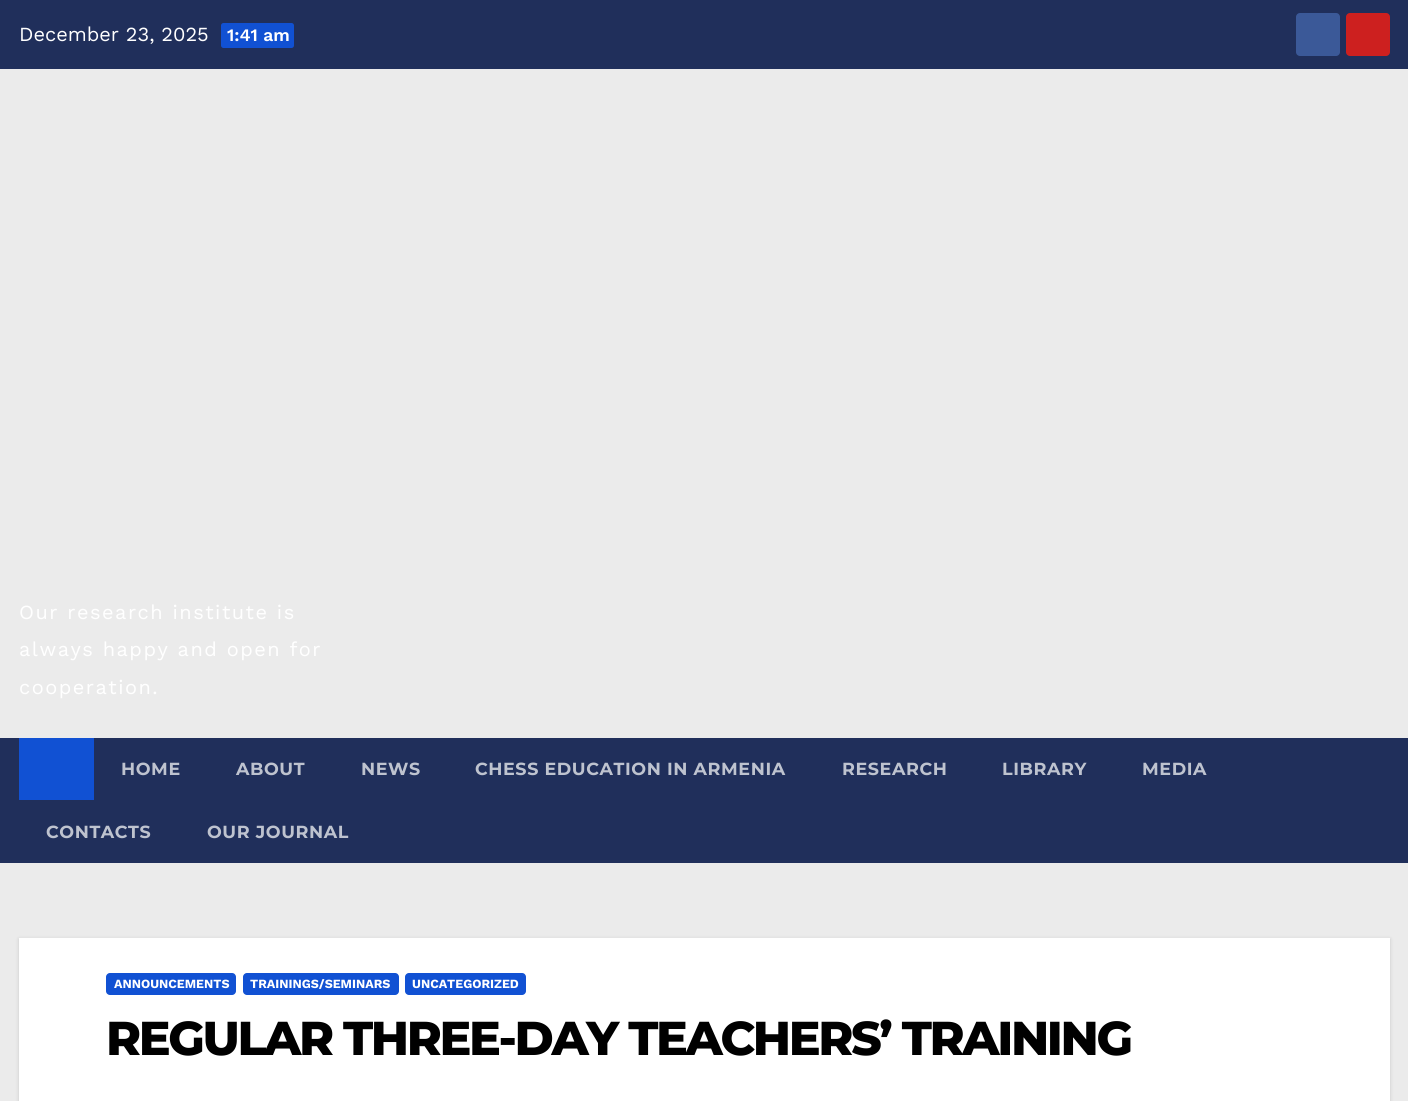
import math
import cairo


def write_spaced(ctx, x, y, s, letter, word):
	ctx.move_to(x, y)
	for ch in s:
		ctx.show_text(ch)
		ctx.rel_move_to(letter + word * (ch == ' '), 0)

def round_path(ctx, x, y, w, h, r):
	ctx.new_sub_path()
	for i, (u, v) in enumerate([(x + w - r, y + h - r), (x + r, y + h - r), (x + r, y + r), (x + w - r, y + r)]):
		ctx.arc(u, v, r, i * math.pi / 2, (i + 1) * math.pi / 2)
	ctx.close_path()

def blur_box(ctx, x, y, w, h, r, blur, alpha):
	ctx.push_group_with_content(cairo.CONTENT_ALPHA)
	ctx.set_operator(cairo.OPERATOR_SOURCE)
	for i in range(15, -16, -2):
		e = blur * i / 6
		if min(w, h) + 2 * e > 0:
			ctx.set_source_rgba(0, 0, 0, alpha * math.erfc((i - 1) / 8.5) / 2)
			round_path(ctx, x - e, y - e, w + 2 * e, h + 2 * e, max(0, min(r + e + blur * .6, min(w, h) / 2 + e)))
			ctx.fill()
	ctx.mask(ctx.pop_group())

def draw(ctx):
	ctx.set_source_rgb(0.918, 0.918, 0.918)
	ctx.paint()
	ctx.set_source_rgb(0.125, 0.184, 0.357)
	ctx.rectangle(0, 0, 1408, 69)
	ctx.fill()
	ctx.select_font_face('Work Sans')
	ctx.set_font_size(20)
	ctx.set_source_rgb(1, 1, 1)
	ctx.move_to(19, 41)
	ctx.show_text('December 23, 2025')
	ctx.set_source_rgb(0.067, 0.318, 0.827)
	round_path(ctx, 221, 23, 73, 25, 2.5)
	ctx.fill()
	ctx.select_font_face('Work Sans SemiBold')
	ctx.set_font_size(17.5)
	ctx.set_source_rgb(1, 1, 1)
	ctx.move_to(227, 41)
	ctx.show_text('1:41 am')
	ctx.set_source_rgb(0.231, 0.349, 0.596)
	round_path(ctx, 1296, 13, 44, 43, 4)
	ctx.fill()
	ctx.set_source_rgb(0.804, 0.125, 0.122)
	round_path(ctx, 1346, 13, 44, 43, 4)
	ctx.fill()
	ctx.select_font_face('Work Sans')
	ctx.set_font_size(20)
	ctx.set_source_rgb(1, 1, 1)
	for x, y, s in [
		(19, 619, 'Our research institute is'),
		(19, 656, 'always happy and open for'),
		(19, 694, 'cooperation.'),
	]:
		write_spaced(ctx, x, y, s, 1.5, 0)
	ctx.set_source_rgb(0.125, 0.184, 0.357)
	ctx.rectangle(0, 738, 1408, 125)
	ctx.fill()
	ctx.set_source_rgb(0.067, 0.318, 0.827)
	ctx.rectangle(19, 738, 75, 62)
	ctx.fill()
	ctx.select_font_face('Montserrat', cairo.FONT_SLANT_NORMAL, cairo.FONT_WEIGHT_BOLD)
	ctx.set_font_size(17.5)
	ctx.set_source_rgb(0.745, 0.765, 0.812)
	for x, y, s in [
		(121, 775, 'HOME'),
		(236, 775, 'ABOUT'),
		(361, 775, 'NEWS'),
		(475, 775, 'CHESS EDUCATION IN ARMENIA'),
		(842, 775, 'RESEARCH'),
		(1002, 775, 'LIBRARY'),
		(1142, 775, 'MEDIA'),
		(46, 838, 'CONTACTS'),
		(207, 838, 'OUR JOURNAL'),
	]:
		write_spaced(ctx, x, y, s, 0.6, 0)
	ctx.set_source_rgb(0, 0, 0)
	blur_box(ctx, 19, 939, 1371, 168, 0, 2, 0.15)
	ctx.set_source_rgb(1, 1, 1)
	ctx.rectangle(19, 938, 1371, 163)
	ctx.fill()
	ctx.set_source_rgb(0.067, 0.318, 0.827)
	round_path(ctx, 106, 973, 130, 22, 4)
	ctx.fill()
	ctx.select_font_face('Work Sans', cairo.FONT_SLANT_NORMAL, cairo.FONT_WEIGHT_BOLD)
	ctx.set_font_size(12.5)
	ctx.set_source_rgb(1, 1, 1)
	ctx.move_to(114, 988)
	ctx.show_text('ANNOUNCEMENTS')
	ctx.set_source_rgb(0.067, 0.318, 0.827)
	round_path(ctx, 243, 973, 156, 22, 4)
	ctx.fill()
	ctx.set_source_rgb(1, 1, 1)
	ctx.move_to(250, 988)
	ctx.show_text('TRAININGS/SEMINARS')
	ctx.set_source_rgb(0.067, 0.318, 0.827)
	round_path(ctx, 405, 973, 121, 22, 4)
	ctx.fill()
	ctx.set_source_rgb(1, 1, 1)
	ctx.move_to(412, 988)
	ctx.show_text('UNCATEGORIZED')
	ctx.select_font_face('Montserrat ExtraBold')
	ctx.set_font_size(47.5)
	ctx.set_source_rgb(0, 0, 0)
	write_spaced(ctx, 106, 1055, 'REGULAR THREE-DAY TEACHERS’ TRAINING', -2.4, 0)


surface = cairo.ImageSurface(cairo.FORMAT_RGB24, 1408, 1101)
ctx = cairo.Context(surface)
options = cairo.FontOptions()
options.set_hint_metrics(cairo.HINT_METRICS_OFF)
options.set_hint_style(cairo.HINT_STYLE_NONE)
ctx.set_font_options(options)
ctx.set_miter_limit(4)
draw(ctx)
surface.write_to_png('image.png')
